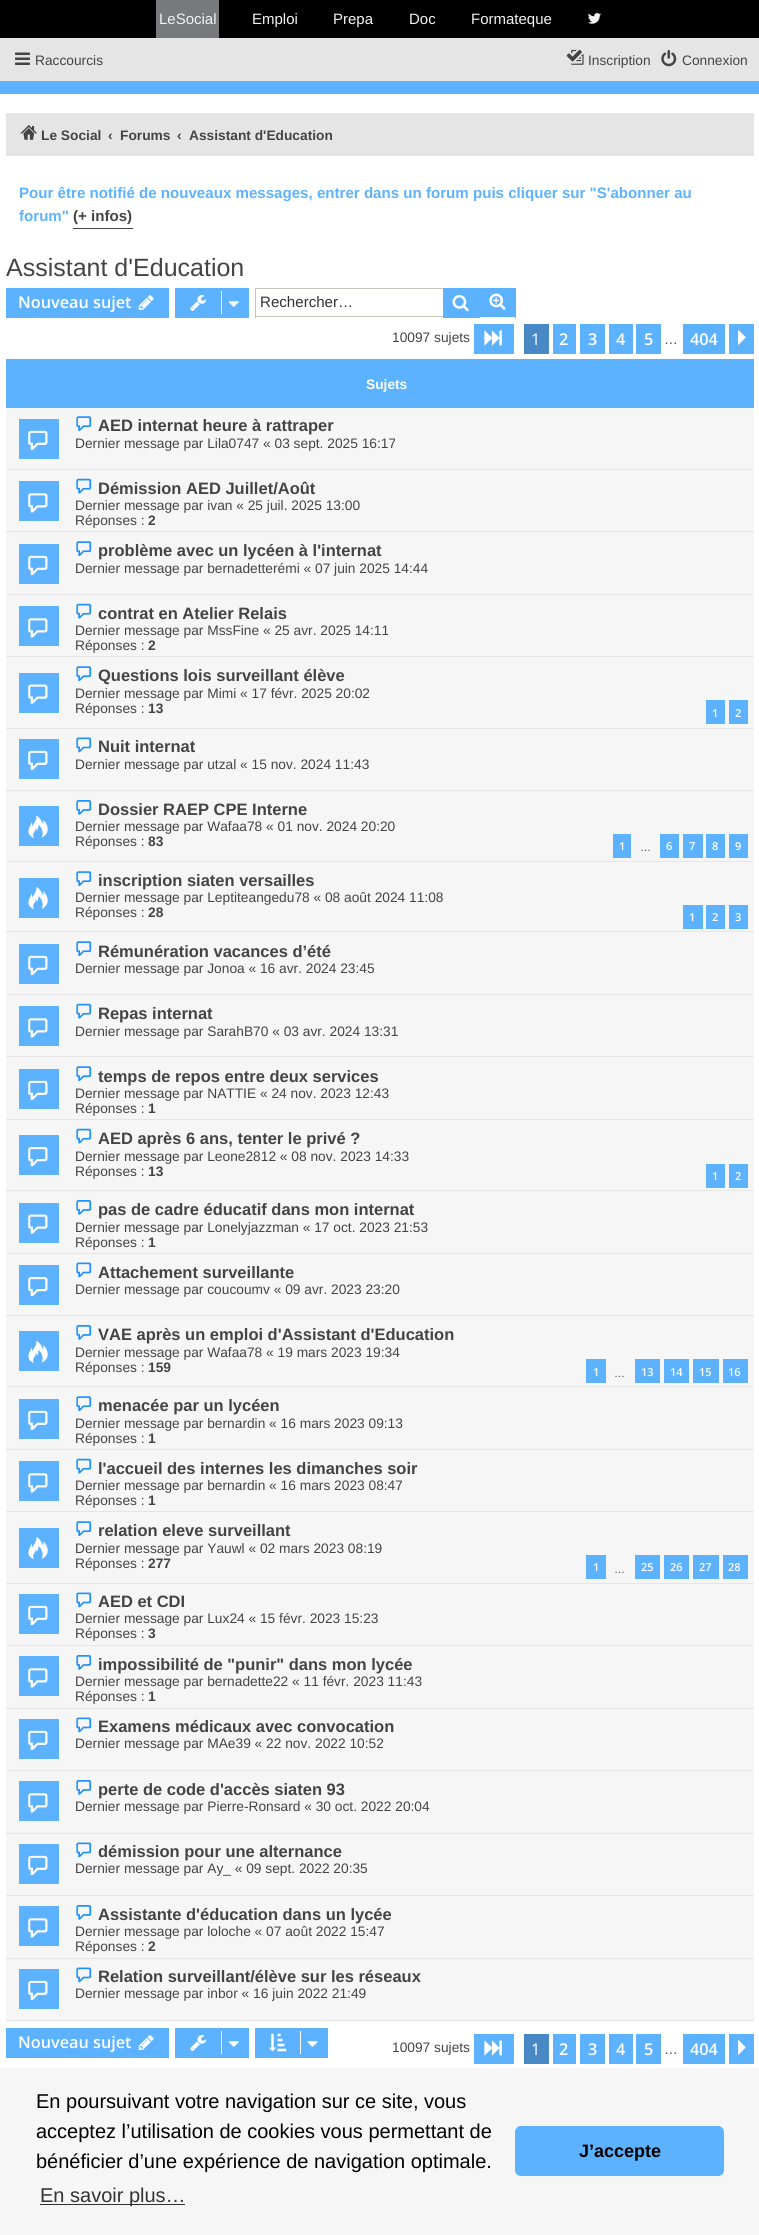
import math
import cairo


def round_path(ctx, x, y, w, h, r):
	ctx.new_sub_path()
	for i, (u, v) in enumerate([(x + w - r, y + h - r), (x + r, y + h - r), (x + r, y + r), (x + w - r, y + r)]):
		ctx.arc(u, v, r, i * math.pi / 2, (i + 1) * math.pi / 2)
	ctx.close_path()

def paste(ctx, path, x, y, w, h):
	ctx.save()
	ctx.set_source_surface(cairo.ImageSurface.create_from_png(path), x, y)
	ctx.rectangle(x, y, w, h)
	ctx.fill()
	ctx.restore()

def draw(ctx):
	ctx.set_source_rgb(1, 1, 1)
	ctx.paint()
	ctx.set_source_rgb(0, 0, 0)
	ctx.rectangle(0, 0, 759, 38)
	ctx.fill()
	ctx.set_source_rgb(0.467, 0.475, 0.486)
	ctx.rectangle(156, 0, 63, 38)
	ctx.fill()
	ctx.select_font_face('Liberation Sans')
	ctx.set_font_size(15)
	ctx.set_source_rgb(0.949, 0.949, 0.949)
	for x, y, s in [
		(159, 24, 'LeSocial'),
		(252, 24, 'Emploi'),
		(333, 24, 'Prepa'),
		(409, 24, 'Doc'),
		(471, 24, 'Formateque'),
	]:
		ctx.move_to(x, y)
		ctx.show_text(s)
	paste(ctx, 'media/1.png', 588, 13, 13, 11)
	ctx.set_source_rgb(0.898, 0.898, 0.898)
	ctx.rectangle(0, 38, 759, 43)
	ctx.fill()
	paste(ctx, 'media/2.png', 15, 52, 15, 13)
	ctx.set_font_size(13.75)
	ctx.set_source_rgb(0.267, 0.267, 0.267)
	ctx.move_to(35, 65)
	ctx.show_text('Raccourcis')
	paste(ctx, 'media/3.png', 566, 49, 18, 16)
	ctx.move_to(588, 65)
	ctx.show_text('Inscription')
	paste(ctx, 'media/4.png', 661, 50, 16, 17)
	ctx.move_to(682, 65)
	ctx.show_text('Connexion')
	ctx.set_source_rgb(0.365, 0.698, 1)
	ctx.rectangle(0, 81, 759, 13)
	ctx.fill()
	ctx.set_source_rgb(0.898, 0.898, 0.898)
	ctx.rectangle(6, 113, 748, 43)
	ctx.fill()
	paste(ctx, 'media/5.png', 20, 125, 18, 15)
	ctx.select_font_face('Liberation Sans', cairo.FONT_SLANT_NORMAL, cairo.FONT_WEIGHT_BOLD)
	ctx.set_source_rgb(0.267, 0.267, 0.267)
	for x, y, s in [
		(41, 140, 'Le Social'),
		(108, 140, '‹'),
		(120, 140, 'Forums'),
		(177, 140, '‹'),
		(189, 140, 'Assistant d\'Education'),
	]:
		ctx.move_to(x, y)
		ctx.show_text(s)
	ctx.set_font_size(15.1)
	ctx.set_source_rgb(0.365, 0.698, 1)
	ctx.move_to(19, 198)
	ctx.show_text('Pour être notifié de nouveaux messages, entrer dans un forum puis cliquer sur "S\'abonner au')
	ctx.move_to(19, 221)
	ctx.show_text('forum"')
	ctx.set_source_rgb(0.267, 0.267, 0.267)
	ctx.rectangle(73, 228, 60, 1)
	ctx.fill()
	ctx.move_to(73, 221)
	ctx.show_text('(+ infos)')
	ctx.select_font_face('Liberation Sans')
	ctx.set_font_size(25)
	ctx.move_to(6, 276)
	ctx.show_text('Assistant d\'Education')
	ctx.set_source_rgb(0.365, 0.698, 1)
	ctx.rectangle(6, 288, 163, 30)
	ctx.fill()
	ctx.select_font_face('Open Sans SemiBold')
	ctx.set_font_size(16.25)
	ctx.set_source_rgb(1, 1, 1)
	ctx.move_to(18, 308)
	ctx.show_text('Nouveau sujet')
	paste(ctx, 'media/6.png', 138, 295, 16, 15)
	ctx.set_source_rgb(0.365, 0.698, 1)
	ctx.rectangle(175, 288, 74, 30)
	ctx.fill()
	paste(ctx, 'media/7.png', 190, 295, 17, 16)
	ctx.set_source_rgb(1, 1, 1)
	ctx.rectangle(221, 291, 1, 23)
	ctx.fill()
	paste(ctx, 'media/8.png', 228, 301, 11, 6)
	ctx.set_source_rgb(0.78, 0.765, 0.749)
	ctx.rectangle(255, 288, 188, 1)
	ctx.rectangle(255, 316, 188, 1)
	ctx.rectangle(255, 288, 1, 30)
	ctx.fill()
	ctx.select_font_face('Liberation Sans')
	ctx.set_font_size(15.1)
	ctx.set_source_rgb(0.2, 0.2, 0.2)
	ctx.move_to(260, 307)
	ctx.show_text('Rechercher…')
	ctx.set_source_rgb(0.365, 0.698, 1)
	ctx.rectangle(443, 288, 37, 30)
	ctx.fill()
	paste(ctx, 'media/9.png', 452, 295, 17, 17)
	ctx.rectangle(480, 289, 35, 27)
	ctx.rectangle(480, 288, 36, 1)
	ctx.rectangle(515, 288, 1, 30)
	ctx.rectangle(480, 316, 36, 1)
	ctx.fill()
	paste(ctx, 'media/10.png', 489, 293, 17, 17)
	ctx.set_font_size(13.75)
	ctx.set_source_rgb(0.267, 0.267, 0.267)
	ctx.move_to(392, 342)
	ctx.show_text('10097 sujets')
	ctx.set_source_rgb(0.365, 0.698, 1)
	ctx.rectangle(474, 324, 40, 30)
	ctx.fill()
	paste(ctx, 'media/11.png', 484, 330, 18, 16)
	ctx.set_source_rgb(0.282, 0.537, 0.773)
	ctx.rectangle(524, 324, 25, 30)
	ctx.fill()
	ctx.select_font_face('Open Sans')
	ctx.set_font_size(16.25)
	ctx.set_source_rgb(1, 1, 1)
	ctx.move_to(531, 345)
	ctx.show_text('1')
	ctx.set_source_rgb(0.365, 0.698, 1)
	ctx.rectangle(553, 324, 23, 30)
	ctx.fill()
	ctx.select_font_face('Open Sans SemiBold')
	ctx.set_source_rgb(1, 1, 1)
	ctx.move_to(559, 345)
	ctx.show_text('2')
	ctx.set_source_rgb(0.365, 0.698, 1)
	ctx.rectangle(580, 324, 25, 30)
	ctx.fill()
	ctx.set_source_rgb(1, 1, 1)
	ctx.move_to(588, 345)
	ctx.show_text('3')
	ctx.set_source_rgb(0.365, 0.698, 1)
	ctx.rectangle(609, 324, 24, 30)
	ctx.fill()
	ctx.set_source_rgb(1, 1, 1)
	ctx.move_to(616, 345)
	ctx.show_text('4')
	ctx.set_source_rgb(0.365, 0.698, 1)
	ctx.rectangle(636, 324, 25, 30)
	ctx.fill()
	ctx.set_source_rgb(1, 1, 1)
	ctx.move_to(644, 345)
	ctx.show_text('5')
	ctx.select_font_face('Liberation Sans')
	ctx.set_font_size(13.75)
	ctx.set_source_rgb(0.267, 0.267, 0.267)
	ctx.move_to(664, 344)
	ctx.show_text('…')
	ctx.set_source_rgb(0.365, 0.698, 1)
	ctx.rectangle(683, 324, 42, 30)
	ctx.fill()
	ctx.select_font_face('Open Sans SemiBold')
	ctx.set_font_size(16.25)
	ctx.set_source_rgb(1, 1, 1)
	ctx.move_to(690, 345)
	ctx.show_text('404')
	ctx.set_source_rgb(0.365, 0.698, 1)
	ctx.rectangle(729, 324, 25, 30)
	ctx.fill()
	paste(ctx, 'media/12.png', 738, 329, 8, 16)
	ctx.rectangle(6, 359, 748, 49)
	ctx.fill()
	ctx.select_font_face('Liberation Sans', cairo.FONT_SLANT_NORMAL, cairo.FONT_WEIGHT_BOLD)
	ctx.set_font_size(13.75)
	ctx.set_source_rgb(1, 1, 1)
	ctx.move_to(366, 389)
	ctx.show_text('Sujets')
	ctx.set_source_rgb(0.961, 0.961, 0.961)
	ctx.rectangle(6, 408, 748, 61)
	ctx.fill()
	ctx.set_source_rgb(0.898, 0.898, 0.898)
	ctx.rectangle(6, 469, 748, 1)
	ctx.fill()
	ctx.set_source_rgb(0.365, 0.698, 1)
	ctx.rectangle(19, 419, 40, 40)
	ctx.fill()
	paste(ctx, 'media/13.png', 28, 430, 20, 20)
	paste(ctx, 'media/14.png', 76, 416, 16, 15)
	ctx.set_font_size(16.5)
	ctx.set_source_rgb(0.267, 0.267, 0.267)
	ctx.move_to(98, 431)
	ctx.show_text('AED internat heure à rattraper')
	ctx.select_font_face('Liberation Sans')
	ctx.set_font_size(13.75)
	ctx.move_to(75, 448)
	ctx.show_text('Dernier message par Lila0747 « 03 sept. 2025 16:17')
	ctx.set_source_rgb(0.961, 0.961, 0.961)
	ctx.rectangle(6, 470, 748, 124)
	ctx.fill()
	ctx.set_source_rgb(0.898, 0.898, 0.898)
	ctx.rectangle(6, 531, 748, 1)
	ctx.fill()
	ctx.set_source_rgb(0.365, 0.698, 1)
	ctx.rectangle(19, 481, 40, 40)
	ctx.fill()
	paste(ctx, 'media/15.png', 28, 493, 20, 20)
	paste(ctx, 'media/16.png', 76, 478, 16, 16)
	ctx.select_font_face('Liberation Sans', cairo.FONT_SLANT_NORMAL, cairo.FONT_WEIGHT_BOLD)
	ctx.set_font_size(16.5)
	ctx.set_source_rgb(0.267, 0.267, 0.267)
	ctx.move_to(98, 494)
	ctx.show_text('Démission AED Juillet/Août')
	ctx.select_font_face('Liberation Sans')
	ctx.set_font_size(13.75)
	ctx.move_to(75, 510)
	ctx.show_text('Dernier message par ivan « 25 juil. 2025 13:00')
	ctx.move_to(75, 525)
	ctx.show_text('Réponses :')
	ctx.select_font_face('Liberation Sans', cairo.FONT_SLANT_NORMAL, cairo.FONT_WEIGHT_BOLD)
	ctx.move_to(148, 525)
	ctx.show_text('2')
	ctx.set_source_rgb(0.898, 0.898, 0.898)
	ctx.rectangle(6, 594, 748, 1)
	ctx.fill()
	ctx.set_source_rgb(0.365, 0.698, 1)
	ctx.rectangle(19, 544, 40, 40)
	ctx.fill()
	paste(ctx, 'media/13.png', 28, 555, 20, 20)
	paste(ctx, 'media/14.png', 76, 541, 16, 15)
	ctx.set_font_size(16.5)
	ctx.set_source_rgb(0.267, 0.267, 0.267)
	ctx.move_to(98, 556)
	ctx.show_text('problème avec un lycéen à l\'internat')
	ctx.select_font_face('Liberation Sans')
	ctx.set_font_size(13.75)
	ctx.move_to(75, 573)
	ctx.show_text('Dernier message par bernadetterémi « 07 juin 2025 14:44')
	ctx.set_source_rgb(0.961, 0.961, 0.961)
	ctx.rectangle(6, 595, 748, 133)
	ctx.fill()
	ctx.set_source_rgb(0.898, 0.898, 0.898)
	ctx.rectangle(6, 656, 748, 1)
	ctx.fill()
	ctx.set_source_rgb(0.365, 0.698, 1)
	ctx.rectangle(19, 606, 40, 40)
	ctx.fill()
	paste(ctx, 'media/15.png', 28, 618, 20, 20)
	paste(ctx, 'media/16.png', 76, 603, 16, 16)
	ctx.select_font_face('Liberation Sans', cairo.FONT_SLANT_NORMAL, cairo.FONT_WEIGHT_BOLD)
	ctx.set_font_size(16.5)
	ctx.set_source_rgb(0.267, 0.267, 0.267)
	ctx.move_to(98, 619)
	ctx.show_text('contrat en Atelier Relais')
	ctx.select_font_face('Liberation Sans')
	ctx.set_font_size(13.75)
	ctx.move_to(75, 635)
	ctx.show_text('Dernier message par MssFine « 25 avr. 2025 14:11')
	ctx.move_to(75, 650)
	ctx.show_text('Réponses :')
	ctx.select_font_face('Liberation Sans', cairo.FONT_SLANT_NORMAL, cairo.FONT_WEIGHT_BOLD)
	ctx.move_to(148, 650)
	ctx.show_text('2')
	ctx.set_source_rgb(0.898, 0.898, 0.898)
	ctx.rectangle(6, 728, 748, 1)
	ctx.fill()
	ctx.set_source_rgb(0.365, 0.698, 1)
	ctx.rectangle(19, 673, 40, 40)
	ctx.fill()
	paste(ctx, 'media/17.png', 28, 684, 20, 20)
	paste(ctx, 'media/14.png', 76, 666, 16, 15)
	ctx.set_font_size(16.5)
	ctx.set_source_rgb(0.267, 0.267, 0.267)
	ctx.move_to(98, 681)
	ctx.show_text('Questions lois surveillant élève')
	ctx.select_font_face('Liberation Sans')
	ctx.set_font_size(13.75)
	ctx.move_to(75, 698)
	ctx.show_text('Dernier message par Mimi « 17 févr. 2025 20:02')
	ctx.move_to(75, 713)
	ctx.show_text('Réponses :')
	ctx.select_font_face('Liberation Sans', cairo.FONT_SLANT_NORMAL, cairo.FONT_WEIGHT_BOLD)
	ctx.move_to(148, 713)
	ctx.show_text('13')
	ctx.set_source_rgb(0.365, 0.698, 1)
	ctx.rectangle(706, 700, 19, 24)
	ctx.fill()
	ctx.select_font_face('Open Sans SemiBold')
	ctx.set_font_size(11)
	ctx.set_source_rgb(1, 1, 1)
	ctx.move_to(712, 717)
	ctx.show_text('1')
	ctx.set_source_rgb(0.365, 0.698, 1)
	ctx.rectangle(729, 700, 19, 24)
	ctx.fill()
	ctx.set_source_rgb(1, 1, 1)
	ctx.move_to(735, 717)
	ctx.show_text('2')
	ctx.set_source_rgb(0.961, 0.961, 0.961)
	ctx.rectangle(6, 729, 748, 61)
	ctx.fill()
	ctx.set_source_rgb(0.898, 0.898, 0.898)
	ctx.rectangle(6, 790, 748, 1)
	ctx.fill()
	ctx.set_source_rgb(0.365, 0.698, 1)
	ctx.rectangle(19, 739, 40, 40)
	ctx.fill()
	paste(ctx, 'media/13.png', 28, 750, 20, 20)
	paste(ctx, 'media/18.png', 76, 737, 16, 16)
	ctx.select_font_face('Liberation Sans', cairo.FONT_SLANT_NORMAL, cairo.FONT_WEIGHT_BOLD)
	ctx.set_font_size(16.5)
	ctx.set_source_rgb(0.267, 0.267, 0.267)
	ctx.move_to(98, 752)
	ctx.show_text('Nuit internat')
	ctx.select_font_face('Liberation Sans')
	ctx.set_font_size(13.75)
	ctx.move_to(75, 769)
	ctx.show_text('Dernier message par utzal « 15 nov. 2024 11:43')
	ctx.set_source_rgb(0.961, 0.961, 0.961)
	ctx.rectangle(6, 791, 748, 203)
	ctx.fill()
	ctx.set_source_rgb(0.898, 0.898, 0.898)
	ctx.rectangle(6, 861, 748, 1)
	ctx.fill()
	ctx.set_source_rgb(0.365, 0.698, 1)
	ctx.rectangle(19, 806, 40, 40)
	ctx.fill()
	paste(ctx, 'media/19.png', 28, 815, 20, 23)
	paste(ctx, 'media/20.png', 76, 800, 16, 15)
	ctx.select_font_face('Liberation Sans', cairo.FONT_SLANT_NORMAL, cairo.FONT_WEIGHT_BOLD)
	ctx.set_font_size(16.5)
	ctx.set_source_rgb(0.267, 0.267, 0.267)
	ctx.move_to(98, 815)
	ctx.show_text('Dossier RAEP CPE Interne')
	ctx.select_font_face('Liberation Sans')
	ctx.set_font_size(13.75)
	ctx.move_to(75, 831)
	ctx.show_text('Dernier message par Wafaa78 « 01 nov. 2024 20:20')
	ctx.move_to(75, 846)
	ctx.show_text('Réponses :')
	ctx.select_font_face('Liberation Sans', cairo.FONT_SLANT_NORMAL, cairo.FONT_WEIGHT_BOLD)
	ctx.move_to(148, 846)
	ctx.show_text('83')
	ctx.set_source_rgb(0.365, 0.698, 1)
	ctx.rectangle(613, 834, 18, 24)
	ctx.fill()
	ctx.select_font_face('Open Sans SemiBold')
	ctx.set_font_size(11)
	ctx.set_source_rgb(1, 1, 1)
	ctx.move_to(619, 850)
	ctx.show_text('1')
	ctx.select_font_face('Liberation Sans')
	ctx.set_source_rgb(0.267, 0.267, 0.267)
	ctx.move_to(640, 851)
	ctx.show_text('…')
	ctx.set_source_rgb(0.365, 0.698, 1)
	ctx.rectangle(660, 834, 19, 24)
	ctx.fill()
	ctx.select_font_face('Open Sans SemiBold')
	ctx.set_source_rgb(1, 1, 1)
	ctx.move_to(666, 850)
	ctx.show_text('6')
	ctx.set_source_rgb(0.365, 0.698, 1)
	ctx.rectangle(683, 834, 20, 24)
	ctx.fill()
	ctx.set_source_rgb(1, 1, 1)
	ctx.move_to(689, 850)
	ctx.show_text('7')
	ctx.set_source_rgb(0.365, 0.698, 1)
	ctx.rectangle(706, 834, 19, 24)
	ctx.fill()
	ctx.set_source_rgb(1, 1, 1)
	ctx.move_to(712, 850)
	ctx.show_text('8')
	ctx.set_source_rgb(0.365, 0.698, 1)
	ctx.rectangle(729, 834, 19, 24)
	ctx.fill()
	ctx.set_source_rgb(1, 1, 1)
	ctx.move_to(735, 850)
	ctx.show_text('9')
	ctx.set_source_rgb(0.898, 0.898, 0.898)
	ctx.rectangle(6, 931, 748, 1)
	ctx.fill()
	ctx.set_source_rgb(0.365, 0.698, 1)
	ctx.rectangle(19, 878, 40, 40)
	ctx.fill()
	paste(ctx, 'media/21.png', 28, 887, 20, 23)
	paste(ctx, 'media/14.png', 76, 871, 16, 15)
	ctx.select_font_face('Liberation Sans', cairo.FONT_SLANT_NORMAL, cairo.FONT_WEIGHT_BOLD)
	ctx.set_font_size(16.5)
	ctx.set_source_rgb(0.267, 0.267, 0.267)
	ctx.move_to(98, 886)
	ctx.show_text('inscription siaten versailles')
	ctx.select_font_face('Liberation Sans')
	ctx.set_font_size(13.75)
	ctx.move_to(75, 902)
	ctx.show_text('Dernier message par Leptiteangedu78 « 08 août 2024 11:08')
	ctx.move_to(75, 917)
	ctx.show_text('Réponses :')
	ctx.select_font_face('Liberation Sans', cairo.FONT_SLANT_NORMAL, cairo.FONT_WEIGHT_BOLD)
	ctx.move_to(148, 917)
	ctx.show_text('28')
	ctx.set_source_rgb(0.365, 0.698, 1)
	ctx.rectangle(683, 905, 20, 24)
	ctx.fill()
	ctx.select_font_face('Open Sans SemiBold')
	ctx.set_font_size(11)
	ctx.set_source_rgb(1, 1, 1)
	ctx.move_to(689, 921)
	ctx.show_text('1')
	ctx.set_source_rgb(0.365, 0.698, 1)
	ctx.rectangle(706, 905, 19, 24)
	ctx.fill()
	ctx.set_source_rgb(1, 1, 1)
	ctx.move_to(712, 921)
	ctx.show_text('2')
	ctx.set_source_rgb(0.365, 0.698, 1)
	ctx.rectangle(729, 905, 19, 24)
	ctx.fill()
	ctx.set_source_rgb(1, 1, 1)
	ctx.move_to(735, 921)
	ctx.show_text('3')
	ctx.set_source_rgb(0.898, 0.898, 0.898)
	ctx.rectangle(6, 994, 748, 1)
	ctx.fill()
	ctx.set_source_rgb(0.365, 0.698, 1)
	ctx.rectangle(19, 944, 40, 40)
	ctx.fill()
	paste(ctx, 'media/13.png', 28, 955, 20, 20)
	paste(ctx, 'media/14.png', 76, 941, 16, 15)
	ctx.select_font_face('Liberation Sans', cairo.FONT_SLANT_NORMAL, cairo.FONT_WEIGHT_BOLD)
	ctx.set_font_size(16.5)
	ctx.set_source_rgb(0.267, 0.267, 0.267)
	ctx.move_to(98, 957)
	ctx.show_text('Rémunération vacances d’été')
	ctx.select_font_face('Liberation Sans')
	ctx.set_font_size(13.75)
	ctx.move_to(75, 973)
	ctx.show_text('Dernier message par Jonoa « 16 avr. 2024 23:45')
	ctx.set_source_rgb(0.961, 0.961, 0.961)
	ctx.rectangle(6, 995, 748, 124)
	ctx.fill()
	ctx.set_source_rgb(0.898, 0.898, 0.898)
	ctx.rectangle(6, 1056, 748, 1)
	ctx.fill()
	ctx.set_source_rgb(0.365, 0.698, 1)
	ctx.rectangle(19, 1006, 40, 40)
	ctx.fill()
	paste(ctx, 'media/15.png', 28, 1018, 20, 20)
	paste(ctx, 'media/16.png', 76, 1003, 16, 16)
	ctx.select_font_face('Liberation Sans', cairo.FONT_SLANT_NORMAL, cairo.FONT_WEIGHT_BOLD)
	ctx.set_font_size(16.5)
	ctx.set_source_rgb(0.267, 0.267, 0.267)
	ctx.move_to(98, 1019)
	ctx.show_text('Repas internat')
	ctx.select_font_face('Liberation Sans')
	ctx.set_font_size(13.75)
	ctx.move_to(75, 1036)
	ctx.show_text('Dernier message par SarahB70 « 03 avr. 2024 13:31')
	ctx.set_source_rgb(0.898, 0.898, 0.898)
	ctx.rectangle(6, 1119, 748, 1)
	ctx.fill()
	ctx.set_source_rgb(0.365, 0.698, 1)
	ctx.rectangle(19, 1069, 40, 40)
	ctx.fill()
	paste(ctx, 'media/13.png', 28, 1080, 20, 20)
	paste(ctx, 'media/14.png', 76, 1066, 16, 15)
	ctx.select_font_face('Liberation Sans', cairo.FONT_SLANT_NORMAL, cairo.FONT_WEIGHT_BOLD)
	ctx.set_font_size(16.5)
	ctx.set_source_rgb(0.267, 0.267, 0.267)
	ctx.move_to(98, 1082)
	ctx.show_text('temps de repos entre deux services')
	ctx.select_font_face('Liberation Sans')
	ctx.set_font_size(13.75)
	ctx.move_to(75, 1098)
	ctx.show_text('Dernier message par NATTIE « 24 nov. 2023 12:43')
	ctx.move_to(75, 1113)
	ctx.show_text('Réponses :')
	ctx.select_font_face('Liberation Sans', cairo.FONT_SLANT_NORMAL, cairo.FONT_WEIGHT_BOLD)
	ctx.move_to(148, 1113)
	ctx.show_text('1')
	ctx.set_source_rgb(0.961, 0.961, 0.961)
	ctx.rectangle(6, 1120, 748, 70)
	ctx.fill()
	ctx.set_source_rgb(0.898, 0.898, 0.898)
	ctx.rectangle(6, 1190, 748, 1)
	ctx.fill()
	ctx.set_source_rgb(0.365, 0.698, 1)
	ctx.rectangle(19, 1135, 40, 40)
	ctx.fill()
	paste(ctx, 'media/22.png', 28, 1147, 20, 20)
	paste(ctx, 'media/16.png', 76, 1128, 16, 16)
	ctx.set_font_size(16.5)
	ctx.set_source_rgb(0.267, 0.267, 0.267)
	ctx.move_to(98, 1144)
	ctx.show_text('AED après 6 ans, tenter le privé ?')
	ctx.select_font_face('Liberation Sans')
	ctx.set_font_size(13.75)
	ctx.move_to(75, 1161)
	ctx.show_text('Dernier message par Leone2812 « 08 nov. 2023 14:33')
	ctx.move_to(75, 1176)
	ctx.show_text('Réponses :')
	ctx.select_font_face('Liberation Sans', cairo.FONT_SLANT_NORMAL, cairo.FONT_WEIGHT_BOLD)
	ctx.move_to(148, 1176)
	ctx.show_text('13')
	ctx.set_source_rgb(0.365, 0.698, 1)
	ctx.rectangle(706, 1164, 19, 24)
	ctx.fill()
	ctx.select_font_face('Open Sans SemiBold')
	ctx.set_font_size(11)
	ctx.set_source_rgb(1, 1, 1)
	ctx.move_to(712, 1180)
	ctx.show_text('1')
	ctx.set_source_rgb(0.365, 0.698, 1)
	ctx.rectangle(729, 1164, 19, 24)
	ctx.fill()
	ctx.set_source_rgb(1, 1, 1)
	ctx.move_to(735, 1180)
	ctx.show_text('2')
	ctx.set_source_rgb(0.961, 0.961, 0.961)
	ctx.rectangle(6, 1191, 748, 62)
	ctx.fill()
	ctx.set_source_rgb(0.898, 0.898, 0.898)
	ctx.rectangle(6, 1253, 748, 1)
	ctx.fill()
	ctx.set_source_rgb(0.365, 0.698, 1)
	ctx.rectangle(19, 1203, 40, 40)
	ctx.fill()
	paste(ctx, 'media/17.png', 28, 1214, 20, 20)
	paste(ctx, 'media/20.png', 76, 1200, 16, 15)
	ctx.select_font_face('Liberation Sans', cairo.FONT_SLANT_NORMAL, cairo.FONT_WEIGHT_BOLD)
	ctx.set_font_size(16.5)
	ctx.set_source_rgb(0.267, 0.267, 0.267)
	ctx.move_to(98, 1215)
	ctx.show_text('pas de cadre éducatif dans mon internat')
	ctx.select_font_face('Liberation Sans')
	ctx.set_font_size(13.75)
	ctx.move_to(75, 1232)
	ctx.show_text('Dernier message par Lonelyjazzman « 17 oct. 2023 21:53')
	ctx.move_to(75, 1247)
	ctx.show_text('Réponses :')
	ctx.select_font_face('Liberation Sans', cairo.FONT_SLANT_NORMAL, cairo.FONT_WEIGHT_BOLD)
	ctx.move_to(148, 1247)
	ctx.show_text('1')
	ctx.set_source_rgb(0.961, 0.961, 0.961)
	ctx.rectangle(6, 1254, 748, 61)
	ctx.fill()
	ctx.set_source_rgb(0.898, 0.898, 0.898)
	ctx.rectangle(6, 1315, 748, 1)
	ctx.fill()
	ctx.set_source_rgb(0.365, 0.698, 1)
	ctx.rectangle(19, 1265, 40, 40)
	ctx.fill()
	paste(ctx, 'media/22.png', 28, 1277, 20, 20)
	paste(ctx, 'media/18.png', 76, 1262, 16, 16)
	ctx.set_font_size(16.5)
	ctx.set_source_rgb(0.267, 0.267, 0.267)
	ctx.move_to(98, 1278)
	ctx.show_text('Attachement surveillante')
	ctx.select_font_face('Liberation Sans')
	ctx.set_font_size(13.75)
	ctx.move_to(75, 1294)
	ctx.show_text('Dernier message par coucoumv « 09 avr. 2023 23:20')
	ctx.set_source_rgb(0.961, 0.961, 0.961)
	ctx.rectangle(6, 1316, 748, 133)
	ctx.fill()
	ctx.set_source_rgb(0.898, 0.898, 0.898)
	ctx.rectangle(6, 1386, 748, 1)
	ctx.fill()
	ctx.set_source_rgb(0.365, 0.698, 1)
	ctx.rectangle(19, 1331, 40, 40)
	ctx.fill()
	paste(ctx, 'media/19.png', 28, 1340, 20, 23)
	paste(ctx, 'media/20.png', 76, 1325, 16, 15)
	ctx.select_font_face('Liberation Sans', cairo.FONT_SLANT_NORMAL, cairo.FONT_WEIGHT_BOLD)
	ctx.set_font_size(16.5)
	ctx.set_source_rgb(0.267, 0.267, 0.267)
	ctx.move_to(98, 1340)
	ctx.show_text('VAE après un emploi d\'Assistant d\'Education')
	ctx.select_font_face('Liberation Sans')
	ctx.set_font_size(13.75)
	ctx.move_to(75, 1357)
	ctx.show_text('Dernier message par Wafaa78 « 19 mars 2023 19:34')
	ctx.move_to(75, 1372)
	ctx.show_text('Réponses :')
	ctx.select_font_face('Liberation Sans', cairo.FONT_SLANT_NORMAL, cairo.FONT_WEIGHT_BOLD)
	ctx.move_to(148, 1372)
	ctx.show_text('159')
	ctx.set_source_rgb(0.365, 0.698, 1)
	ctx.rectangle(586, 1359, 20, 24)
	ctx.fill()
	ctx.select_font_face('Open Sans SemiBold')
	ctx.set_font_size(11)
	ctx.set_source_rgb(1, 1, 1)
	ctx.move_to(593, 1376)
	ctx.show_text('1')
	ctx.select_font_face('Liberation Sans')
	ctx.set_source_rgb(0.267, 0.267, 0.267)
	ctx.move_to(614, 1377)
	ctx.show_text('…')
	ctx.set_source_rgb(0.365, 0.698, 1)
	ctx.rectangle(635, 1359, 25, 24)
	ctx.fill()
	ctx.select_font_face('Open Sans SemiBold')
	ctx.set_source_rgb(1, 1, 1)
	ctx.move_to(641, 1376)
	ctx.show_text('13')
	ctx.set_source_rgb(0.365, 0.698, 1)
	ctx.rectangle(664, 1359, 25, 24)
	ctx.fill()
	ctx.set_source_rgb(1, 1, 1)
	ctx.move_to(670, 1376)
	ctx.show_text('14')
	ctx.set_source_rgb(0.365, 0.698, 1)
	ctx.rectangle(693, 1359, 26, 24)
	ctx.fill()
	ctx.set_source_rgb(1, 1, 1)
	ctx.move_to(699, 1376)
	ctx.show_text('15')
	ctx.set_source_rgb(0.365, 0.698, 1)
	ctx.rectangle(723, 1359, 25, 24)
	ctx.fill()
	ctx.set_source_rgb(1, 1, 1)
	ctx.move_to(728, 1376)
	ctx.show_text('16')
	ctx.set_source_rgb(0.898, 0.898, 0.898)
	ctx.rectangle(6, 1449, 748, 1)
	ctx.fill()
	ctx.set_source_rgb(0.365, 0.698, 1)
	ctx.rectangle(19, 1399, 40, 40)
	ctx.fill()
	paste(ctx, 'media/13.png', 28, 1410, 20, 20)
	paste(ctx, 'media/14.png', 76, 1396, 16, 15)
	ctx.select_font_face('Liberation Sans', cairo.FONT_SLANT_NORMAL, cairo.FONT_WEIGHT_BOLD)
	ctx.set_font_size(16.5)
	ctx.set_source_rgb(0.267, 0.267, 0.267)
	ctx.move_to(98, 1411)
	ctx.show_text('menacée par un lycéen')
	ctx.select_font_face('Liberation Sans')
	ctx.set_font_size(13.75)
	ctx.move_to(75, 1428)
	ctx.show_text('Dernier message par bernardin « 16 mars 2023 09:13')
	ctx.move_to(75, 1443)
	ctx.show_text('Réponses :')
	ctx.select_font_face('Liberation Sans', cairo.FONT_SLANT_NORMAL, cairo.FONT_WEIGHT_BOLD)
	ctx.move_to(148, 1443)
	ctx.show_text('1')
	ctx.set_source_rgb(0.961, 0.961, 0.961)
	ctx.rectangle(6, 1450, 748, 133)
	ctx.fill()
	ctx.set_source_rgb(0.898, 0.898, 0.898)
	ctx.rectangle(6, 1511, 748, 1)
	ctx.fill()
	ctx.set_source_rgb(0.365, 0.698, 1)
	ctx.rectangle(19, 1461, 40, 40)
	ctx.fill()
	paste(ctx, 'media/15.png', 28, 1473, 20, 20)
	paste(ctx, 'media/16.png', 76, 1458, 16, 16)
	ctx.set_font_size(16.5)
	ctx.set_source_rgb(0.267, 0.267, 0.267)
	ctx.move_to(98, 1474)
	ctx.show_text('l\'accueil des internes les dimanches soir')
	ctx.select_font_face('Liberation Sans')
	ctx.set_font_size(13.75)
	ctx.move_to(75, 1490)
	ctx.show_text('Dernier message par bernardin « 16 mars 2023 08:47')
	ctx.move_to(75, 1505)
	ctx.show_text('Réponses :')
	ctx.select_font_face('Liberation Sans', cairo.FONT_SLANT_NORMAL, cairo.FONT_WEIGHT_BOLD)
	ctx.move_to(148, 1505)
	ctx.show_text('1')
	ctx.set_source_rgb(0.898, 0.898, 0.898)
	ctx.rectangle(6, 1583, 748, 1)
	ctx.fill()
	ctx.set_source_rgb(0.365, 0.698, 1)
	ctx.rectangle(19, 1528, 40, 40)
	ctx.fill()
	paste(ctx, 'media/21.png', 28, 1537, 20, 23)
	paste(ctx, 'media/14.png', 76, 1521, 16, 15)
	ctx.set_font_size(16.5)
	ctx.set_source_rgb(0.267, 0.267, 0.267)
	ctx.move_to(98, 1536)
	ctx.show_text('relation eleve surveillant')
	ctx.select_font_face('Liberation Sans')
	ctx.set_font_size(13.75)
	ctx.move_to(75, 1553)
	ctx.show_text('Dernier message par Yauwl « 02 mars 2023 08:19')
	ctx.move_to(75, 1568)
	ctx.show_text('Réponses :')
	ctx.select_font_face('Liberation Sans', cairo.FONT_SLANT_NORMAL, cairo.FONT_WEIGHT_BOLD)
	ctx.move_to(148, 1568)
	ctx.show_text('277')
	ctx.set_source_rgb(0.365, 0.698, 1)
	ctx.rectangle(586, 1555, 20, 24)
	ctx.fill()
	ctx.select_font_face('Open Sans SemiBold')
	ctx.set_font_size(11)
	ctx.set_source_rgb(1, 1, 1)
	ctx.move_to(593, 1571)
	ctx.show_text('1')
	ctx.set_source_rgb(0.365, 0.698, 1)
	ctx.rectangle(635, 1555, 25, 24)
	ctx.fill()
	ctx.set_source_rgb(1, 1, 1)
	ctx.move_to(641, 1571)
	ctx.show_text('25')
	ctx.set_source_rgb(0.365, 0.698, 1)
	ctx.rectangle(664, 1555, 25, 24)
	ctx.fill()
	ctx.set_source_rgb(1, 1, 1)
	ctx.move_to(670, 1571)
	ctx.show_text('26')
	ctx.set_source_rgb(0.365, 0.698, 1)
	ctx.rectangle(693, 1555, 26, 24)
	ctx.fill()
	ctx.set_source_rgb(1, 1, 1)
	ctx.move_to(699, 1571)
	ctx.show_text('27')
	ctx.set_source_rgb(0.365, 0.698, 1)
	ctx.rectangle(723, 1555, 25, 24)
	ctx.fill()
	ctx.set_source_rgb(1, 1, 1)
	ctx.move_to(728, 1571)
	ctx.show_text('28')
	ctx.select_font_face('Liberation Sans')
	ctx.set_source_rgb(0.267, 0.267, 0.267)
	ctx.move_to(614, 1573)
	ctx.show_text('…')
	ctx.set_source_rgb(0.961, 0.961, 0.961)
	ctx.rectangle(6, 1584, 748, 61)
	ctx.fill()
	ctx.set_source_rgb(0.898, 0.898, 0.898)
	ctx.rectangle(6, 1645, 748, 1)
	ctx.fill()
	ctx.set_source_rgb(0.365, 0.698, 1)
	ctx.rectangle(19, 1594, 40, 40)
	ctx.fill()
	paste(ctx, 'media/13.png', 28, 1605, 20, 20)
	paste(ctx, 'media/18.png', 76, 1592, 16, 16)
	ctx.select_font_face('Liberation Sans', cairo.FONT_SLANT_NORMAL, cairo.FONT_WEIGHT_BOLD)
	ctx.set_font_size(16.5)
	ctx.set_source_rgb(0.267, 0.267, 0.267)
	ctx.move_to(98, 1607)
	ctx.show_text('AED et CDI')
	ctx.select_font_face('Liberation Sans')
	ctx.set_font_size(13.75)
	ctx.move_to(75, 1623)
	ctx.show_text('Dernier message par Lux24 « 15 févr. 2023 15:23')
	ctx.move_to(75, 1638)
	ctx.show_text('Réponses :')
	ctx.select_font_face('Liberation Sans', cairo.FONT_SLANT_NORMAL, cairo.FONT_WEIGHT_BOLD)
	ctx.move_to(148, 1638)
	ctx.show_text('3')
	ctx.set_source_rgb(0.961, 0.961, 0.961)
	ctx.rectangle(6, 1646, 748, 62)
	ctx.fill()
	ctx.set_source_rgb(0.898, 0.898, 0.898)
	ctx.rectangle(6, 1708, 748, 1)
	ctx.fill()
	ctx.set_source_rgb(0.365, 0.698, 1)
	ctx.rectangle(19, 1656, 40, 40)
	ctx.fill()
	paste(ctx, 'media/15.png', 28, 1668, 20, 20)
	paste(ctx, 'media/20.png', 76, 1655, 16, 15)
	ctx.set_font_size(16.5)
	ctx.set_source_rgb(0.267, 0.267, 0.267)
	ctx.move_to(98, 1670)
	ctx.show_text('impossibilité de "punir" dans mon lycée')
	ctx.select_font_face('Liberation Sans')
	ctx.set_font_size(13.75)
	ctx.move_to(75, 1686)
	ctx.show_text('Dernier message par bernadette22 « 11 févr. 2023 11:43')
	ctx.move_to(75, 1701)
	ctx.show_text('Réponses :')
	ctx.select_font_face('Liberation Sans', cairo.FONT_SLANT_NORMAL, cairo.FONT_WEIGHT_BOLD)
	ctx.move_to(148, 1701)
	ctx.show_text('1')
	ctx.set_source_rgb(0.961, 0.961, 0.961)
	ctx.rectangle(6, 1709, 748, 61)
	ctx.fill()
	ctx.set_source_rgb(0.898, 0.898, 0.898)
	ctx.rectangle(6, 1770, 748, 1)
	ctx.fill()
	ctx.set_source_rgb(0.365, 0.698, 1)
	ctx.rectangle(19, 1719, 40, 40)
	ctx.fill()
	paste(ctx, 'media/13.png', 28, 1730, 20, 20)
	paste(ctx, 'media/18.png', 76, 1717, 16, 16)
	ctx.set_font_size(16.5)
	ctx.set_source_rgb(0.267, 0.267, 0.267)
	ctx.move_to(98, 1732)
	ctx.show_text('Examens médicaux avec convocation')
	ctx.select_font_face('Liberation Sans')
	ctx.set_font_size(13.75)
	ctx.move_to(75, 1748)
	ctx.show_text('Dernier message par MAe39 « 22 nov. 2022 10:52')
	ctx.set_source_rgb(0.961, 0.961, 0.961)
	ctx.rectangle(6, 1771, 748, 62)
	ctx.fill()
	ctx.set_source_rgb(0.898, 0.898, 0.898)
	ctx.rectangle(6, 1833, 748, 1)
	ctx.fill()
	ctx.set_source_rgb(0.365, 0.698, 1)
	ctx.rectangle(19, 1781, 40, 40)
	ctx.fill()
	paste(ctx, 'media/15.png', 28, 1793, 20, 20)
	paste(ctx, 'media/20.png', 76, 1780, 16, 15)
	ctx.select_font_face('Liberation Sans', cairo.FONT_SLANT_NORMAL, cairo.FONT_WEIGHT_BOLD)
	ctx.set_font_size(16.5)
	ctx.set_source_rgb(0.267, 0.267, 0.267)
	ctx.move_to(98, 1795)
	ctx.show_text('perte de code d\'accès siaten 93')
	ctx.select_font_face('Liberation Sans')
	ctx.set_font_size(13.75)
	ctx.move_to(75, 1811)
	ctx.show_text('Dernier message par Pierre-Ronsard « 30 oct. 2022 20:04')
	ctx.set_source_rgb(0.961, 0.961, 0.961)
	ctx.rectangle(6, 1834, 748, 61)
	ctx.fill()
	ctx.set_source_rgb(0.898, 0.898, 0.898)
	ctx.rectangle(6, 1895, 748, 1)
	ctx.fill()
	ctx.set_source_rgb(0.365, 0.698, 1)
	ctx.rectangle(19, 1844, 40, 40)
	ctx.fill()
	paste(ctx, 'media/13.png', 28, 1855, 20, 20)
	paste(ctx, 'media/18.png', 76, 1842, 16, 16)
	ctx.select_font_face('Liberation Sans', cairo.FONT_SLANT_NORMAL, cairo.FONT_WEIGHT_BOLD)
	ctx.set_font_size(16.5)
	ctx.set_source_rgb(0.267, 0.267, 0.267)
	ctx.move_to(98, 1857)
	ctx.show_text('démission pour une alternance')
	ctx.select_font_face('Liberation Sans')
	ctx.set_font_size(13.75)
	ctx.move_to(75, 1873)
	ctx.show_text('Dernier message par Ay_ « 09 sept. 2022 20:35')
	ctx.set_source_rgb(0.961, 0.961, 0.961)
	ctx.rectangle(6, 1896, 748, 62)
	ctx.fill()
	ctx.set_source_rgb(0.898, 0.898, 0.898)
	ctx.rectangle(6, 1958, 748, 1)
	ctx.fill()
	ctx.set_source_rgb(0.365, 0.698, 1)
	ctx.rectangle(19, 1906, 40, 40)
	ctx.fill()
	paste(ctx, 'media/15.png', 28, 1918, 20, 20)
	paste(ctx, 'media/20.png', 76, 1905, 16, 15)
	ctx.select_font_face('Liberation Sans', cairo.FONT_SLANT_NORMAL, cairo.FONT_WEIGHT_BOLD)
	ctx.set_font_size(16.5)
	ctx.set_source_rgb(0.267, 0.267, 0.267)
	ctx.move_to(98, 1920)
	ctx.show_text('Assistante d\'éducation dans un lycée')
	ctx.select_font_face('Liberation Sans')
	ctx.set_font_size(13.75)
	ctx.move_to(75, 1936)
	ctx.show_text('Dernier message par loloche « 07 août 2022 15:47')
	ctx.move_to(75, 1951)
	ctx.show_text('Réponses :')
	ctx.select_font_face('Liberation Sans', cairo.FONT_SLANT_NORMAL, cairo.FONT_WEIGHT_BOLD)
	ctx.move_to(148, 1951)
	ctx.show_text('2')
	ctx.set_source_rgb(0.961, 0.961, 0.961)
	ctx.rectangle(6, 1959, 748, 61)
	ctx.fill()
	ctx.set_source_rgb(0.898, 0.898, 0.898)
	ctx.rectangle(6, 2020, 748, 1)
	ctx.fill()
	ctx.set_source_rgb(0.365, 0.698, 1)
	ctx.rectangle(19, 1969, 40, 40)
	ctx.fill()
	paste(ctx, 'media/13.png', 28, 1980, 20, 20)
	paste(ctx, 'media/18.png', 76, 1967, 16, 16)
	ctx.set_font_size(16.5)
	ctx.set_source_rgb(0.267, 0.267, 0.267)
	ctx.move_to(98, 1982)
	ctx.show_text('Relation surveillant/élève sur les réseaux')
	ctx.select_font_face('Liberation Sans')
	ctx.set_font_size(13.75)
	ctx.move_to(75, 1998)
	ctx.show_text('Dernier message par inbor « 16 juin 2022 21:49')
	ctx.set_source_rgb(0.365, 0.698, 1)
	ctx.rectangle(6, 2028, 163, 30)
	ctx.fill()
	ctx.select_font_face('Open Sans SemiBold')
	ctx.set_font_size(16.25)
	ctx.set_source_rgb(1, 1, 1)
	ctx.move_to(18, 2048)
	ctx.show_text('Nouveau sujet')
	paste(ctx, 'media/6.png', 138, 2035, 16, 15)
	ctx.set_source_rgb(0.365, 0.698, 1)
	ctx.rectangle(175, 2028, 74, 30)
	ctx.fill()
	paste(ctx, 'media/7.png', 190, 2035, 17, 16)
	ctx.set_source_rgb(1, 1, 1)
	ctx.rectangle(221, 2031, 1, 23)
	ctx.fill()
	paste(ctx, 'media/8.png', 228, 2041, 11, 6)
	ctx.set_source_rgb(0.365, 0.698, 1)
	ctx.rectangle(255, 2028, 73, 30)
	ctx.fill()
	paste(ctx, 'media/23.png', 269, 2033, 18, 19)
	ctx.set_source_rgb(1, 1, 1)
	ctx.rectangle(300, 2031, 1, 23)
	ctx.fill()
	paste(ctx, 'media/24.png', 307, 2041, 11, 6)
	ctx.select_font_face('Liberation Sans')
	ctx.set_font_size(13.75)
	ctx.set_source_rgb(0.267, 0.267, 0.267)
	ctx.move_to(392, 2052)
	ctx.show_text('10097 sujets')
	ctx.set_source_rgb(0.365, 0.698, 1)
	ctx.rectangle(474, 2034, 40, 30)
	ctx.fill()
	paste(ctx, 'media/11.png', 484, 2040, 18, 16)
	ctx.set_source_rgb(0.282, 0.537, 0.773)
	ctx.rectangle(524, 2034, 25, 30)
	ctx.fill()
	ctx.select_font_face('Open Sans')
	ctx.set_font_size(16.25)
	ctx.set_source_rgb(1, 1, 1)
	ctx.move_to(531, 2055)
	ctx.show_text('1')
	ctx.set_source_rgb(0.365, 0.698, 1)
	ctx.rectangle(553, 2034, 23, 30)
	ctx.fill()
	ctx.select_font_face('Open Sans SemiBold')
	ctx.set_source_rgb(1, 1, 1)
	ctx.move_to(559, 2055)
	ctx.show_text('2')
	ctx.set_source_rgb(0.365, 0.698, 1)
	ctx.rectangle(580, 2034, 25, 30)
	ctx.fill()
	ctx.set_source_rgb(1, 1, 1)
	ctx.move_to(588, 2055)
	ctx.show_text('3')
	ctx.set_source_rgb(0.365, 0.698, 1)
	ctx.rectangle(609, 2034, 24, 30)
	ctx.fill()
	ctx.set_source_rgb(1, 1, 1)
	ctx.move_to(616, 2055)
	ctx.show_text('4')
	ctx.set_source_rgb(0.365, 0.698, 1)
	ctx.rectangle(636, 2034, 25, 30)
	ctx.fill()
	ctx.set_source_rgb(1, 1, 1)
	ctx.move_to(644, 2055)
	ctx.show_text('5')
	ctx.select_font_face('Liberation Sans')
	ctx.set_font_size(13.75)
	ctx.set_source_rgb(0.267, 0.267, 0.267)
	ctx.move_to(664, 2054)
	ctx.show_text('…')
	ctx.set_source_rgb(0.365, 0.698, 1)
	ctx.rectangle(683, 2034, 42, 30)
	ctx.fill()
	ctx.select_font_face('Open Sans SemiBold')
	ctx.set_font_size(16.25)
	ctx.set_source_rgb(1, 1, 1)
	ctx.move_to(690, 2055)
	ctx.show_text('404')
	ctx.set_source_rgb(0.365, 0.698, 1)
	ctx.rectangle(729, 2034, 25, 30)
	ctx.fill()
	paste(ctx, 'media/12.png', 738, 2039, 8, 16)
	ctx.set_source_rgb(0.961, 0.961, 0.961)
	ctx.rectangle(0, 2068, 759, 167)
	ctx.fill()
	ctx.select_font_face('Liberation Sans')
	ctx.set_font_size(20)
	ctx.set_source_rgb(0, 0, 0)
	for x, y, s in [
		(36, 2108, 'En poursuivant votre navigation sur ce site, vous'),
		(36, 2138, 'acceptez l’utilisation de cookies vous permettant de'),
		(36, 2168, 'bénéficier d’une expérience de navigation optimale.'),
	]:
		ctx.move_to(x, y)
		ctx.show_text(s)
	ctx.set_source_rgb(0.192, 0.192, 0.192)
	ctx.rectangle(40, 2204, 145, 1)
	ctx.fill()
	ctx.set_source_rgb(0.2, 0.2, 0.2)
	ctx.move_to(40, 2202)
	ctx.show_text('En savoir plus…')
	ctx.set_source_rgb(0.365, 0.698, 1)
	round_path(ctx, 515, 2126, 209, 50, 6)
	ctx.fill()
	ctx.select_font_face('Liberation Sans', cairo.FONT_SLANT_NORMAL, cairo.FONT_WEIGHT_BOLD)
	ctx.set_font_size(18)
	ctx.set_source_rgb(0, 0, 0)
	ctx.move_to(579, 2157)
	ctx.show_text('J’accepte')


surface = cairo.ImageSurface(cairo.FORMAT_RGB24, 759, 2235)
ctx = cairo.Context(surface)
options = cairo.FontOptions()
options.set_hint_metrics(cairo.HINT_METRICS_OFF)
options.set_hint_style(cairo.HINT_STYLE_NONE)
ctx.set_font_options(options)
ctx.set_miter_limit(4)
draw(ctx)
surface.write_to_png('image.png')
